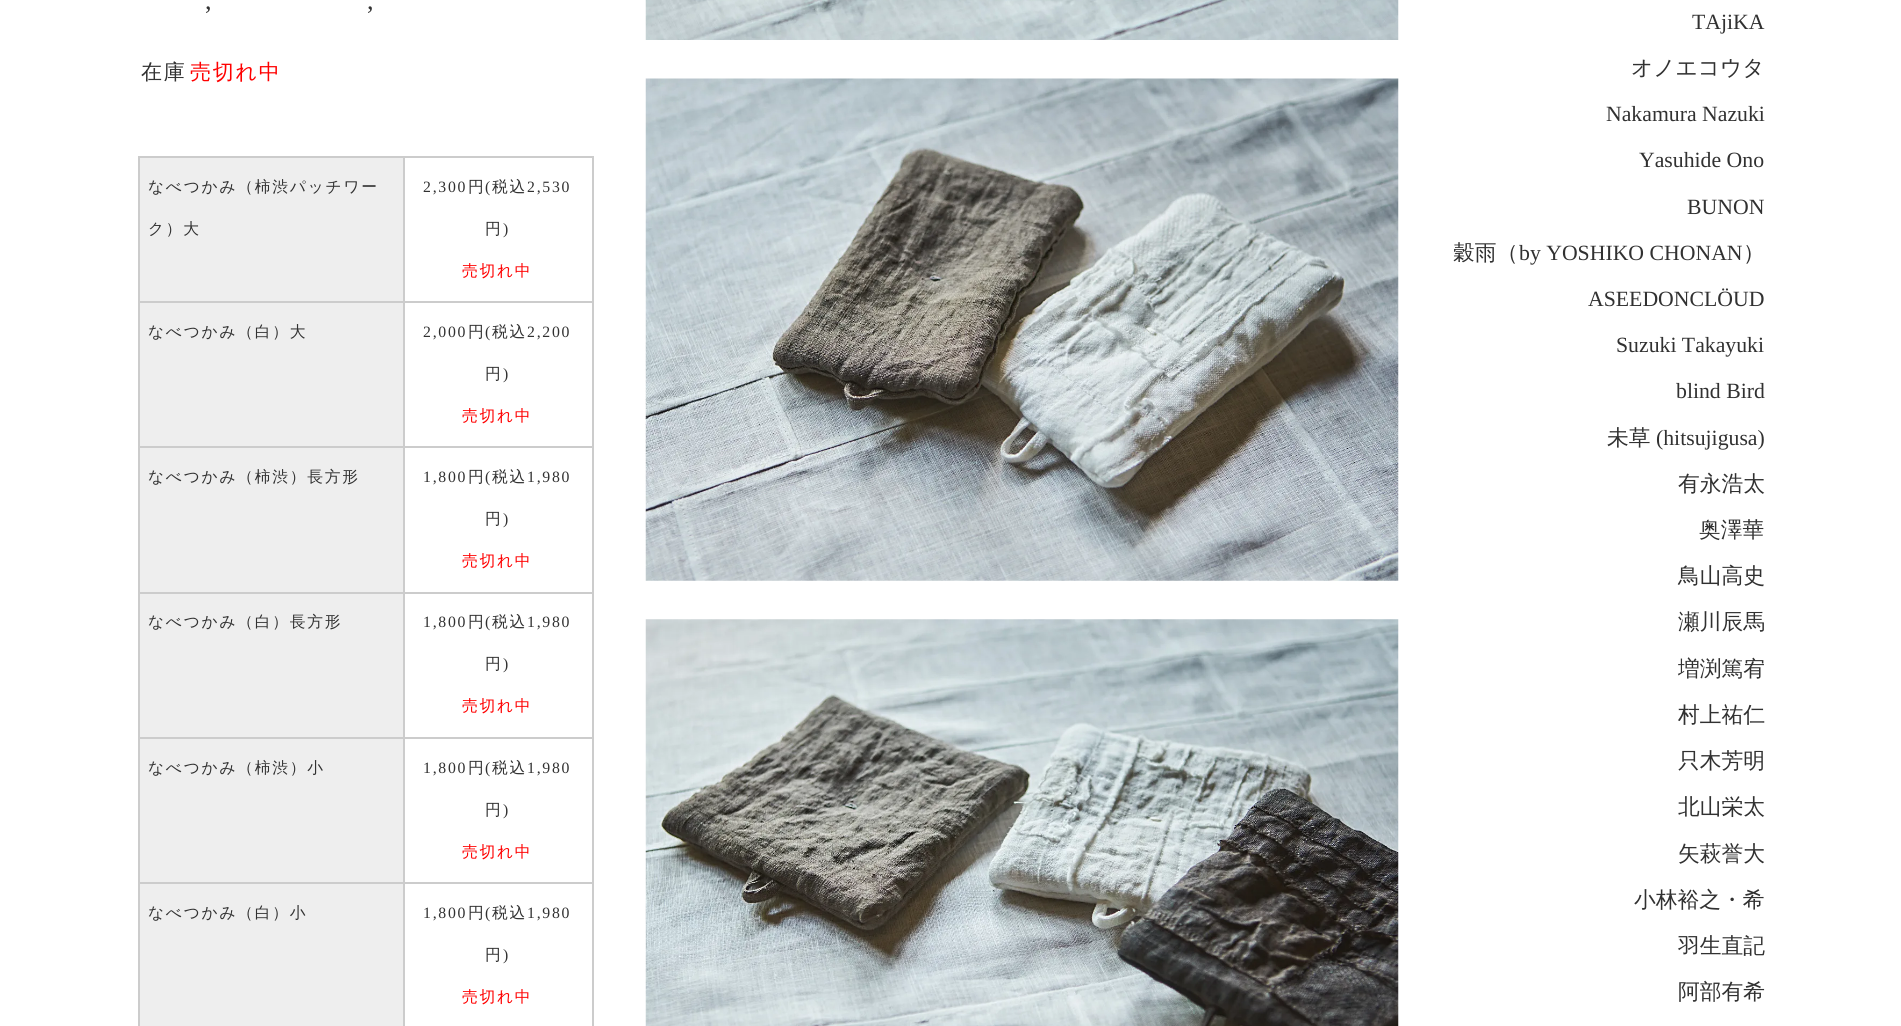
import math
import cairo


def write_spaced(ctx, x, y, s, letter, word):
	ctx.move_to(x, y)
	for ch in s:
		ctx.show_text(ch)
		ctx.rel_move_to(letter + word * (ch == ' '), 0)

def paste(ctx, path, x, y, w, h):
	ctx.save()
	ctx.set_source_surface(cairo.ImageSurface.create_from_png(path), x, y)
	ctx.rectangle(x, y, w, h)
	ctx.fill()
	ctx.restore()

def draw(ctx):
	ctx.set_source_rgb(1, 1, 1)
	ctx.paint()
	ctx.select_font_face('Liberation Serif')
	ctx.set_font_size(26)
	ctx.set_source_rgb(0.192, 0.192, 0.192)
	write_spaced(ctx, 205, 9, ',', 1.75, 0)
	write_spaced(ctx, 367, 9, ',', 1.75, 0)
	ctx.select_font_face('WenQuanYi Zen Hei Medium')
	ctx.set_font_size(21)
	write_spaced(ctx, 141, 79, '在庫', 1.75, 0)
	ctx.set_source_rgb(1, 0, 0)
	write_spaced(ctx, 190, 79, '売切れ中', 1.75, 0)
	ctx.set_source_rgb(0.8, 0.8, 0.8)
	ctx.rectangle(138, 156, 455, 2)
	ctx.rectangle(138, 156, 2, 870)
	ctx.fill()
	ctx.set_source_rgb(0.933, 0.933, 0.933)
	ctx.rectangle(140, 158, 263, 143)
	ctx.fill()
	ctx.set_source_rgb(0.8, 0.8, 0.8)
	ctx.rectangle(403, 882, 2, 144)
	ctx.rectangle(592, 156, 2, 870)
	ctx.rectangle(403, 882, 190, 2)
	ctx.rectangle(403, 737, 2, 147)
	ctx.rectangle(403, 737, 190, 2)
	ctx.rectangle(403, 592, 2, 147)
	ctx.rectangle(403, 592, 190, 2)
	ctx.rectangle(403, 446, 2, 147)
	ctx.rectangle(403, 446, 190, 2)
	ctx.rectangle(403, 301, 2, 147)
	ctx.rectangle(403, 301, 190, 2)
	ctx.rectangle(403, 156, 2, 147)
	ctx.rectangle(138, 301, 266, 2)
	ctx.fill()
	ctx.set_font_size(15.75)
	ctx.set_source_rgb(0.192, 0.192, 0.192)
	write_spaced(ctx, 148, 192, 'なべつかみ（柿渋パッチワー', 1.75, 0)
	write_spaced(ctx, 148, 234, 'ク）大', 1.75, 0)
	ctx.select_font_face('Liberation Serif')
	write_spaced(ctx, 423, 192, '2,300', 1.75, 0)
	ctx.select_font_face('WenQuanYi Zen Hei Medium')
	write_spaced(ctx, 468, 192, '円', 1.75, 0)
	ctx.select_font_face('Liberation Serif')
	write_spaced(ctx, 485, 192, '(', 1.75, 0)
	ctx.select_font_face('WenQuanYi Zen Hei Medium')
	write_spaced(ctx, 492, 192, '税込', 1.75, 0)
	ctx.select_font_face('Liberation Serif')
	write_spaced(ctx, 527, 192, '2,530', 1.75, 0)
	ctx.select_font_face('WenQuanYi Zen Hei Medium')
	write_spaced(ctx, 485, 234, '円', 1.75, 0)
	ctx.select_font_face('Liberation Serif')
	write_spaced(ctx, 503, 234, ')', 1.75, 0)
	ctx.select_font_face('WenQuanYi Zen Hei Medium')
	ctx.set_source_rgb(1, 0, 0)
	write_spaced(ctx, 462, 276, '売切れ中', 1.75, 0)
	ctx.set_source_rgb(0.933, 0.933, 0.933)
	ctx.rectangle(140, 303, 263, 143)
	ctx.fill()
	ctx.set_source_rgb(0.8, 0.8, 0.8)
	ctx.rectangle(138, 446, 266, 2)
	ctx.fill()
	ctx.set_source_rgb(0.192, 0.192, 0.192)
	write_spaced(ctx, 148, 337, 'なべつかみ（白）大', 1.75, 0)
	ctx.select_font_face('Liberation Serif')
	write_spaced(ctx, 423, 337, '2,000', 1.75, 0)
	ctx.select_font_face('WenQuanYi Zen Hei Medium')
	write_spaced(ctx, 468, 337, '円', 1.75, 0)
	ctx.select_font_face('Liberation Serif')
	write_spaced(ctx, 485, 337, '(', 1.75, 0)
	ctx.select_font_face('WenQuanYi Zen Hei Medium')
	write_spaced(ctx, 492, 337, '税込', 1.75, 0)
	ctx.select_font_face('Liberation Serif')
	write_spaced(ctx, 527, 337, '2,200', 1.75, 0)
	ctx.select_font_face('WenQuanYi Zen Hei Medium')
	write_spaced(ctx, 485, 379, '円', 1.75, 0)
	ctx.select_font_face('Liberation Serif')
	write_spaced(ctx, 503, 379, ')', 1.75, 0)
	ctx.select_font_face('WenQuanYi Zen Hei Medium')
	ctx.set_source_rgb(1, 0, 0)
	write_spaced(ctx, 462, 421, '売切れ中', 1.75, 0)
	ctx.set_source_rgb(0.933, 0.933, 0.933)
	ctx.rectangle(140, 448, 263, 144)
	ctx.fill()
	ctx.set_source_rgb(0.8, 0.8, 0.8)
	ctx.rectangle(138, 592, 266, 2)
	ctx.fill()
	ctx.set_source_rgb(0.192, 0.192, 0.192)
	write_spaced(ctx, 148, 482, 'なべつかみ（柿渋）長方形', 1.75, 0)
	ctx.select_font_face('Liberation Serif')
	write_spaced(ctx, 423, 482, '1,800', 1.75, 0)
	ctx.select_font_face('WenQuanYi Zen Hei Medium')
	write_spaced(ctx, 468, 482, '円', 1.75, 0)
	ctx.select_font_face('Liberation Serif')
	write_spaced(ctx, 485, 482, '(', 1.75, 0)
	ctx.select_font_face('WenQuanYi Zen Hei Medium')
	write_spaced(ctx, 492, 482, '税込', 1.75, 0)
	ctx.select_font_face('Liberation Serif')
	write_spaced(ctx, 527, 482, '1,980', 1.75, 0)
	ctx.select_font_face('WenQuanYi Zen Hei Medium')
	write_spaced(ctx, 485, 524, '円', 1.75, 0)
	ctx.select_font_face('Liberation Serif')
	write_spaced(ctx, 503, 524, ')', 1.75, 0)
	ctx.select_font_face('WenQuanYi Zen Hei Medium')
	ctx.set_source_rgb(1, 0, 0)
	write_spaced(ctx, 462, 566, '売切れ中', 1.75, 0)
	ctx.set_source_rgb(0.933, 0.933, 0.933)
	ctx.rectangle(140, 594, 263, 143)
	ctx.fill()
	ctx.set_source_rgb(0.8, 0.8, 0.8)
	ctx.rectangle(138, 737, 266, 2)
	ctx.fill()
	ctx.set_source_rgb(0.192, 0.192, 0.192)
	write_spaced(ctx, 148, 627, 'なべつかみ（白）長方形', 1.75, 0)
	ctx.select_font_face('Liberation Serif')
	write_spaced(ctx, 423, 627, '1,800', 1.75, 0)
	ctx.select_font_face('WenQuanYi Zen Hei Medium')
	write_spaced(ctx, 468, 627, '円', 1.75, 0)
	ctx.select_font_face('Liberation Serif')
	write_spaced(ctx, 485, 627, '(', 1.75, 0)
	ctx.select_font_face('WenQuanYi Zen Hei Medium')
	write_spaced(ctx, 492, 627, '税込', 1.75, 0)
	ctx.select_font_face('Liberation Serif')
	write_spaced(ctx, 527, 627, '1,980', 1.75, 0)
	ctx.select_font_face('WenQuanYi Zen Hei Medium')
	write_spaced(ctx, 485, 669, '円', 1.75, 0)
	ctx.select_font_face('Liberation Serif')
	write_spaced(ctx, 503, 669, ')', 1.75, 0)
	ctx.select_font_face('WenQuanYi Zen Hei Medium')
	ctx.set_source_rgb(1, 0, 0)
	write_spaced(ctx, 462, 711, '売切れ中', 1.75, 0)
	ctx.set_source_rgb(0.933, 0.933, 0.933)
	ctx.rectangle(140, 739, 263, 143)
	ctx.fill()
	ctx.set_source_rgb(0.8, 0.8, 0.8)
	ctx.rectangle(138, 882, 266, 2)
	ctx.fill()
	ctx.set_source_rgb(0.192, 0.192, 0.192)
	write_spaced(ctx, 148, 773, 'なべつかみ（柿渋）小', 1.75, 0)
	ctx.select_font_face('Liberation Serif')
	write_spaced(ctx, 423, 773, '1,800', 1.75, 0)
	ctx.select_font_face('WenQuanYi Zen Hei Medium')
	write_spaced(ctx, 468, 773, '円', 1.75, 0)
	ctx.select_font_face('Liberation Serif')
	write_spaced(ctx, 485, 773, '(', 1.75, 0)
	ctx.select_font_face('WenQuanYi Zen Hei Medium')
	write_spaced(ctx, 492, 773, '税込', 1.75, 0)
	ctx.select_font_face('Liberation Serif')
	write_spaced(ctx, 527, 773, '1,980', 1.75, 0)
	ctx.select_font_face('WenQuanYi Zen Hei Medium')
	write_spaced(ctx, 485, 815, '円', 1.75, 0)
	ctx.select_font_face('Liberation Serif')
	write_spaced(ctx, 503, 815, ')', 1.75, 0)
	ctx.select_font_face('WenQuanYi Zen Hei Medium')
	ctx.set_source_rgb(1, 0, 0)
	write_spaced(ctx, 462, 857, '売切れ中', 1.75, 0)
	ctx.set_source_rgb(0.933, 0.933, 0.933)
	ctx.rectangle(140, 884, 263, 142)
	ctx.fill()
	ctx.set_source_rgb(0.192, 0.192, 0.192)
	write_spaced(ctx, 148, 918, 'なべつかみ（白）小', 1.75, 0)
	ctx.select_font_face('Liberation Serif')
	write_spaced(ctx, 423, 918, '1,800', 1.75, 0)
	ctx.select_font_face('WenQuanYi Zen Hei Medium')
	write_spaced(ctx, 468, 918, '円', 1.75, 0)
	ctx.select_font_face('Liberation Serif')
	write_spaced(ctx, 485, 918, '(', 1.75, 0)
	ctx.select_font_face('WenQuanYi Zen Hei Medium')
	write_spaced(ctx, 492, 918, '税込', 1.75, 0)
	ctx.select_font_face('Liberation Serif')
	write_spaced(ctx, 527, 918, '1,980', 1.75, 0)
	ctx.select_font_face('WenQuanYi Zen Hei Medium')
	write_spaced(ctx, 485, 960, '円', 1.75, 0)
	ctx.select_font_face('Liberation Serif')
	write_spaced(ctx, 503, 960, ')', 1.75, 0)
	ctx.select_font_face('WenQuanYi Zen Hei Medium')
	ctx.set_source_rgb(1, 0, 0)
	write_spaced(ctx, 462, 1002, '売切れ中', 1.75, 0)
	paste(ctx, 'media/1.png', 645, 0, 754, 40)
	paste(ctx, 'media/2.png', 645, 78, 754, 503)
	paste(ctx, 'media/3.png', 645, 619, 754, 407)
	ctx.select_font_face('Liberation Serif')
	ctx.set_font_size(21.75)
	ctx.set_source_rgb(0.192, 0.192, 0.192)
	ctx.move_to(1692, 29)
	ctx.show_text('TAjiKA')
	ctx.select_font_face('WenQuanYi Zen Hei Medium')
	ctx.move_to(1631, 75)
	ctx.show_text('オノエコウタ')
	ctx.select_font_face('Liberation Serif')
	for x, y, s in [
		(1606, 121, 'Nakamura Nazuki'),
		(1639, 167, 'Yasuhide Ono'),
		(1687, 214, 'BUNON'),
	]:
		ctx.move_to(x, y)
		ctx.show_text(s)
	ctx.select_font_face('WenQuanYi Zen Hei Medium')
	ctx.move_to(1453, 260)
	ctx.show_text('穀雨（')
	ctx.select_font_face('Liberation Serif')
	ctx.move_to(1519, 260)
	ctx.show_text('by YOSHIKO CHONAN')
	ctx.select_font_face('WenQuanYi Zen Hei Medium')
	ctx.move_to(1743, 260)
	ctx.show_text('）')
	ctx.select_font_face('Liberation Serif')
	for x, y, s in [
		(1588, 306, 'ASEEDONCLÖUD'),
		(1616, 352, 'Suzuki Takayuki'),
		(1676, 398, 'blind Bird'),
	]:
		ctx.move_to(x, y)
		ctx.show_text(s)
	ctx.select_font_face('WenQuanYi Zen Hei Medium')
	ctx.move_to(1607, 445)
	ctx.show_text('未草')
	ctx.select_font_face('Liberation Serif')
	ctx.move_to(1656, 445)
	ctx.show_text('(hitsujigusa)')
	ctx.select_font_face('WenQuanYi Zen Hei Medium')
	for x, y, s in [
		(1678, 491, '有永浩太'),
		(1699, 537, '奥澤華'),
		(1678, 583, '鳥山高史'),
		(1678, 629, '瀬川辰馬'),
		(1678, 676, '増渕篤宥'),
		(1678, 722, '村上祐仁'),
		(1678, 768, '只木芳明'),
		(1678, 814, '北山栄太'),
		(1678, 861, '矢萩誉大'),
		(1634, 907, '小林裕之・希'),
		(1678, 953, '羽生直記'),
		(1678, 999, '阿部有希'),
	]:
		ctx.move_to(x, y)
		ctx.show_text(s)


surface = cairo.ImageSurface(cairo.FORMAT_RGB24, 1901, 1026)
ctx = cairo.Context(surface)
options = cairo.FontOptions()
options.set_hint_metrics(cairo.HINT_METRICS_OFF)
options.set_hint_style(cairo.HINT_STYLE_NONE)
ctx.set_font_options(options)
ctx.set_miter_limit(4)
draw(ctx)
surface.write_to_png('image.png')
